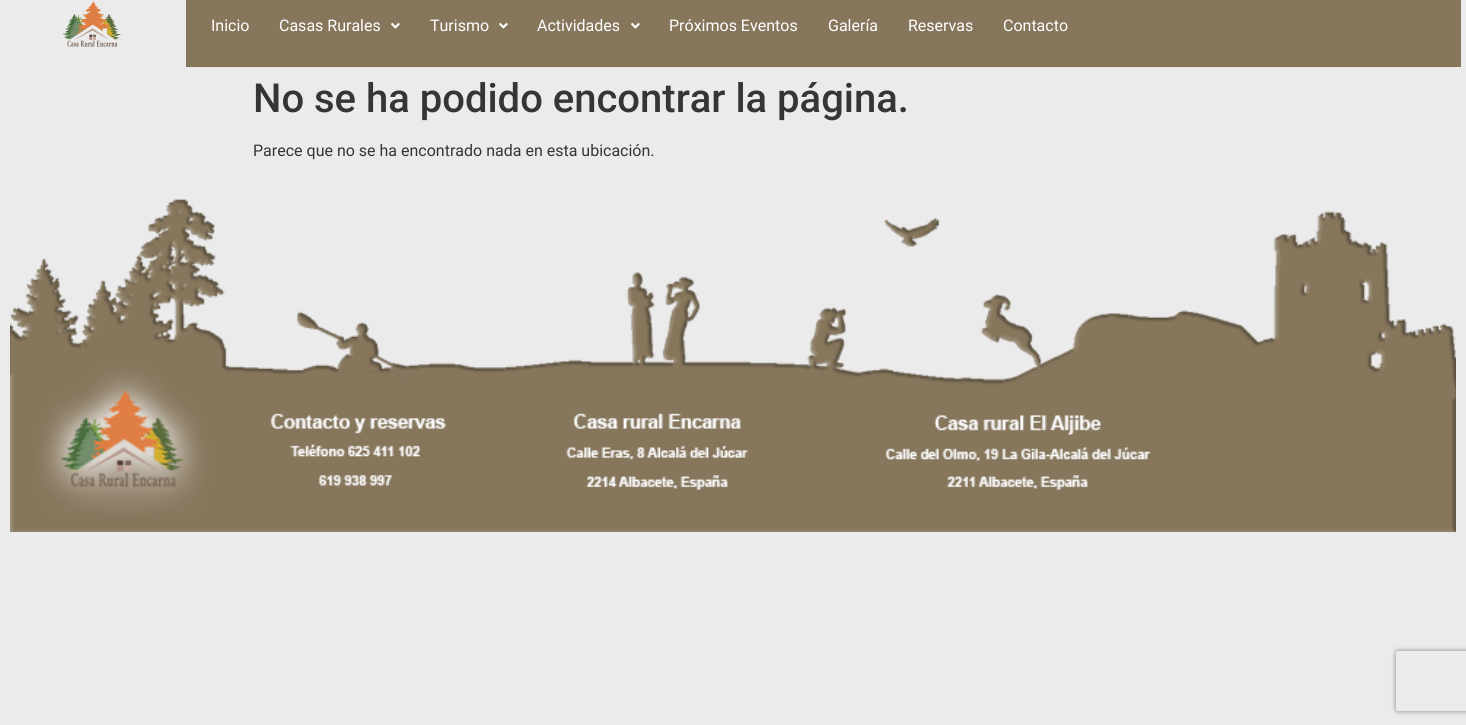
import math
import cairo


def round_path(ctx, x, y, w, h, r):
	ctx.new_sub_path()
	for i, (u, v) in enumerate([(x + w - r, y + h - r), (x + r, y + h - r), (x + r, y + r), (x + w - r, y + r)]):
		ctx.arc(u, v, r, i * math.pi / 2, (i + 1) * math.pi / 2)
	ctx.close_path()

def blur_box(ctx, x, y, w, h, r, blur, alpha):
	ctx.push_group_with_content(cairo.CONTENT_ALPHA)
	ctx.set_operator(cairo.OPERATOR_SOURCE)
	for i in range(15, -16, -2):
		e = blur * i / 6
		if min(w, h) + 2 * e > 0:
			ctx.set_source_rgba(0, 0, 0, alpha * math.erfc((i - 1) / 8.5) / 2)
			round_path(ctx, x - e, y - e, w + 2 * e, h + 2 * e, max(0, min(r + e + blur * .6, min(w, h) / 2 + e)))
			ctx.fill()
	ctx.mask(ctx.pop_group())

def paste(ctx, path, x, y, w, h):
	ctx.save()
	ctx.set_source_surface(cairo.ImageSurface.create_from_png(path), x, y)
	ctx.rectangle(x, y, w, h)
	ctx.fill()
	ctx.restore()

def draw(ctx):
	ctx.set_source_rgb(0.918, 0.918, 0.918)
	ctx.paint()
	paste(ctx, 'media/1.png', 62, 1, 59, 46)
	ctx.set_source_rgb(0.525, 0.463, 0.361)
	ctx.rectangle(186, 0, 1275, 67)
	ctx.fill()
	ctx.select_font_face('Roboto')
	ctx.set_font_size(16)
	ctx.set_source_rgb(1, 1, 1)
	ctx.move_to(211, 31)
	ctx.show_text('Inicio')
	ctx.move_to(279, 31)
	ctx.show_text('Casas Rurales')
	paste(ctx, 'media/2.png', 391, 23, 9, 6)
	ctx.move_to(430, 31)
	ctx.show_text('Turismo')
	paste(ctx, 'media/2.png', 499, 23, 9, 6)
	ctx.move_to(537, 31)
	ctx.show_text('Actividades')
	paste(ctx, 'media/2.png', 631, 23, 9, 6)
	for x, y, s in [
		(669, 31, 'Próximos Eventos'),
		(828, 31, 'Galería'),
		(908, 31, 'Reservas'),
		(1003, 31, 'Contacto'),
	]:
		ctx.move_to(x, y)
		ctx.show_text(s)
	ctx.select_font_face('Roboto Medium')
	ctx.set_font_size(40)
	ctx.set_source_rgb(0.208, 0.208, 0.208)
	ctx.move_to(253, 112)
	ctx.show_text('No se ha podido encontrar la página.')
	ctx.select_font_face('Roboto')
	ctx.set_font_size(16)
	ctx.move_to(253, 156)
	ctx.show_text('Parece que no se ha encontrado nada en esta ubicación.')
	paste(ctx, 'media/3.png', 10, 199, 1446, 333)
	ctx.save()
	ctx.set_fill_rule(cairo.FILL_RULE_EVEN_ODD)
	ctx.new_path()
	ctx.move_to(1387, 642)
	ctx.line_to(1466, 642)
	ctx.line_to(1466, 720)
	ctx.line_to(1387, 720)
	ctx.close_path()
	ctx.move_to(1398, 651)
	ctx.line_to(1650, 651)
	ctx.curve_to(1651, 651, 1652, 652, 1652, 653)
	ctx.line_to(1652, 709)
	ctx.curve_to(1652, 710, 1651, 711, 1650, 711)
	ctx.line_to(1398, 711)
	ctx.curve_to(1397, 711, 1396, 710, 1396, 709)
	ctx.line_to(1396, 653)
	ctx.curve_to(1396, 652, 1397, 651, 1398, 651)
	ctx.close_path()
	ctx.clip()
	ctx.set_source_rgb(0.502, 0.502, 0.502)
	blur_box(ctx, 1396, 651, 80, 60, 2, 2.5, 1)
	ctx.restore()


surface = cairo.ImageSurface(cairo.FORMAT_RGB24, 1466, 725)
ctx = cairo.Context(surface)
options = cairo.FontOptions()
options.set_hint_metrics(cairo.HINT_METRICS_OFF)
options.set_hint_style(cairo.HINT_STYLE_NONE)
ctx.set_font_options(options)
ctx.set_miter_limit(4)
draw(ctx)
surface.write_to_png('image.png')
